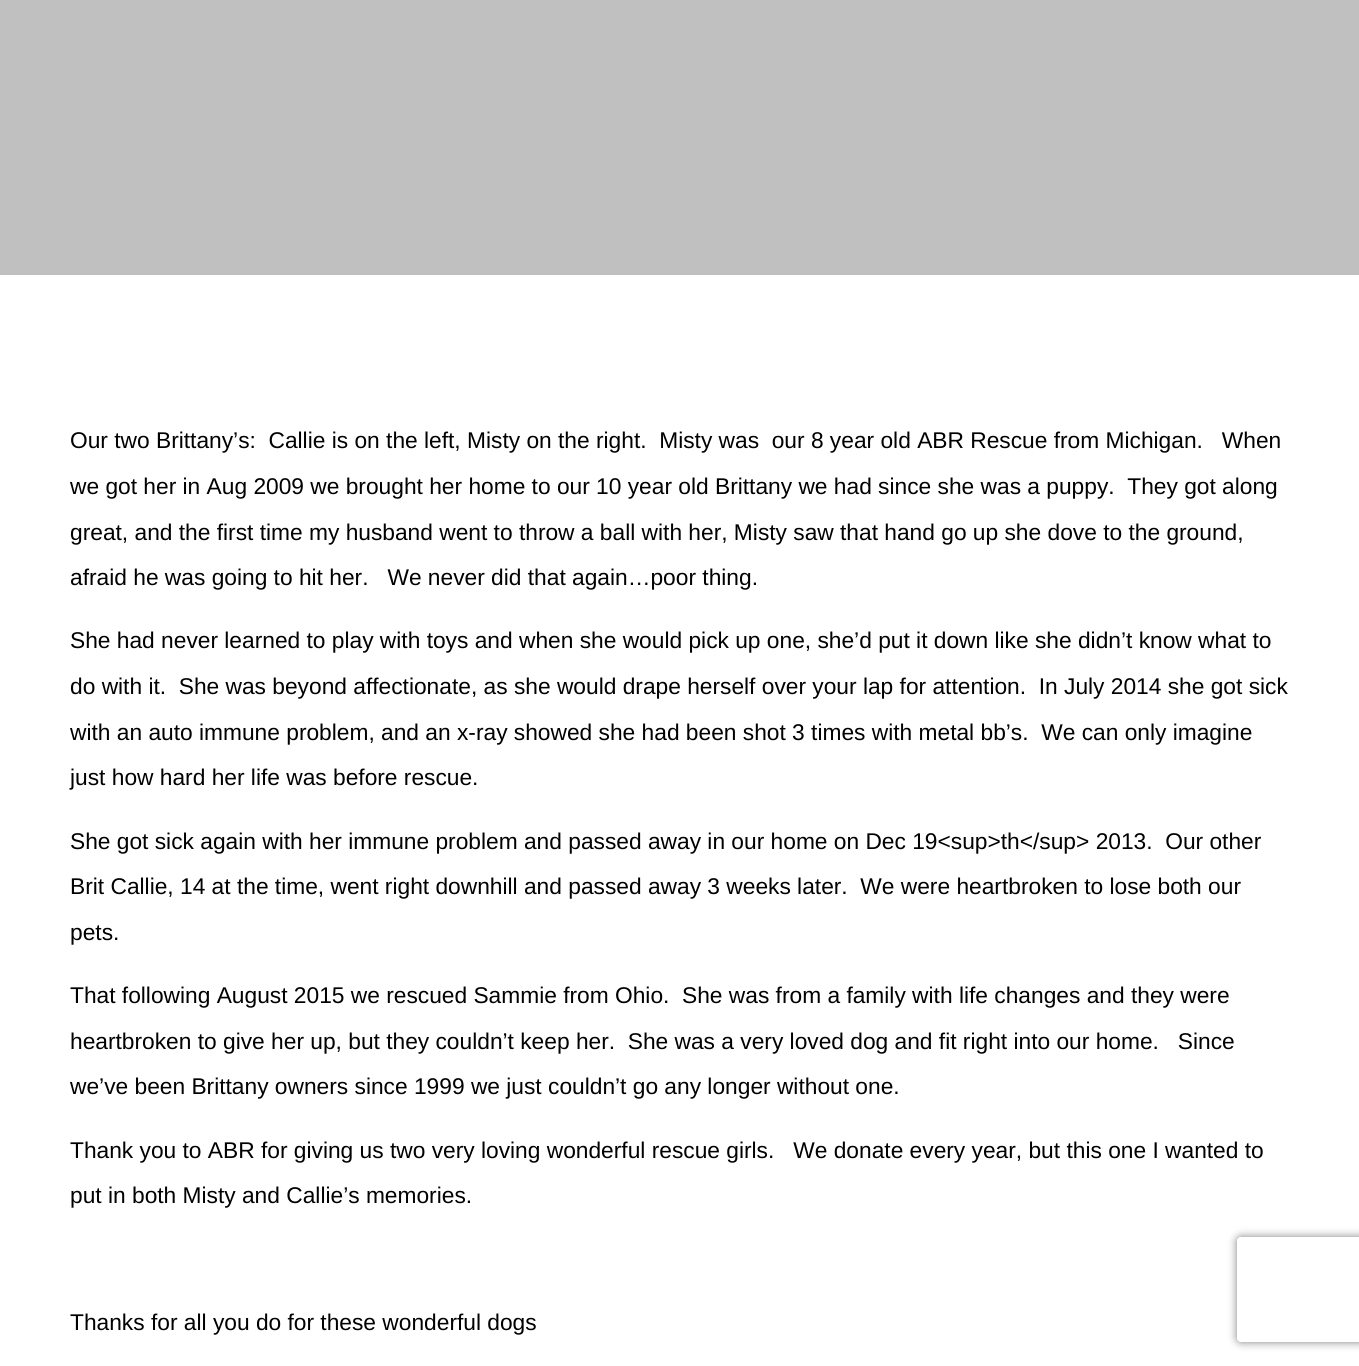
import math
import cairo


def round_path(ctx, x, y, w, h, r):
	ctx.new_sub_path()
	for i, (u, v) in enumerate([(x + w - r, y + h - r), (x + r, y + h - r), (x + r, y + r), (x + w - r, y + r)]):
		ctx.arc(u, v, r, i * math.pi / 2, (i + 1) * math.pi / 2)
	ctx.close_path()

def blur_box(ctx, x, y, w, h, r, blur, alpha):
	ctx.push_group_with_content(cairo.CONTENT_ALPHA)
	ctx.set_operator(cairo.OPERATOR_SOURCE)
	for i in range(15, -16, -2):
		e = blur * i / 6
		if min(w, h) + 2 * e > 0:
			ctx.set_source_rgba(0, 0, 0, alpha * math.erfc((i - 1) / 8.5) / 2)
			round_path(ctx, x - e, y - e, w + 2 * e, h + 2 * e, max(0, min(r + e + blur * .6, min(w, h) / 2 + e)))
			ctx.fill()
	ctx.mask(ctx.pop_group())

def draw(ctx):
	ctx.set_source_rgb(1, 1, 1)
	ctx.paint()
	ctx.set_source_rgb(0.753, 0.753, 0.753)
	ctx.rectangle(0, 0, 1359, 275)
	ctx.fill()
	ctx.select_font_face('Liberation Sans')
	ctx.set_font_size(22.75)
	ctx.set_source_rgb(0, 0, 0)
	for x, y, s in [
		(70, 448, 'Our two Brittany’s:  Callie is on the left, Misty on the right.  Misty was  our 8 year old ABR Rescue from Michigan.   When'),
		(70, 494, 'we got her in Aug 2009 we brought her home to our 10 year old Brittany we had since she was a puppy.  They got along'),
		(70, 540, 'great, and the first time my husband went to throw a ball with her, Misty saw that hand go up she dove to the ground,'),
		(70, 585, 'afraid he was going to hit her.   We never did that again…poor thing.'),
		(70, 648, 'She had never learned to play with toys and when she would pick up one, she’d put it down like she didn’t know what to'),
		(70, 694, 'do with it.  She was beyond affectionate, as she would drape herself over your lap for attention.  In July 2014 she got sick'),
		(70, 740, 'with an auto immune problem, and an x-ray showed she had been shot 3 times with metal bb’s.  We can only imagine'),
		(70, 785, 'just how hard her life was before rescue.'),
		(70, 849, 'She got sick again with her immune problem and passed away in our home on Dec 19<sup>th</sup> 2013.  Our other'),
		(70, 894, 'Brit Callie, 14 at the time, went right downhill and passed away 3 weeks later.  We were heartbroken to lose both our'),
		(70, 940, 'pets.'),
		(70, 1003, 'That following August 2015 we rescued Sammie from Ohio.  She was from a family with life changes and they were'),
		(70, 1049, 'heartbroken to give her up, but they couldn’t keep her.  She was a very loved dog and fit right into our home.   Since'),
		(70, 1094, 'we’ve been Brittany owners since 1999 we just couldn’t go any longer without one.'),
		(70, 1158, 'Thank you to ABR for giving us two very loving wonderful rescue girls.   We donate every year, but this one I wanted to'),
		(70, 1203, 'put in both Misty and Callie’s memories.'),
		(70, 1330, 'Thanks for all you do for these wonderful dogs'),
	]:
		ctx.move_to(x, y)
		ctx.show_text(s)
	ctx.save()
	ctx.set_fill_rule(cairo.FILL_RULE_EVEN_ODD)
	ctx.new_path()
	ctx.move_to(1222, 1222)
	ctx.line_to(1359, 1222)
	ctx.line_to(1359, 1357)
	ctx.line_to(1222, 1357)
	ctx.close_path()
	ctx.move_to(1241, 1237)
	ctx.line_to(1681, 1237)
	ctx.curve_to(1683, 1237, 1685, 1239, 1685, 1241)
	ctx.line_to(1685, 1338)
	ctx.curve_to(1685, 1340, 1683, 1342, 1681, 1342)
	ctx.line_to(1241, 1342)
	ctx.curve_to(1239, 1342, 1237, 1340, 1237, 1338)
	ctx.line_to(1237, 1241)
	ctx.curve_to(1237, 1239, 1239, 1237, 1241, 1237)
	ctx.close_path()
	ctx.clip()
	ctx.set_source_rgb(0.502, 0.502, 0.502)
	blur_box(ctx, 1237, 1237, 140, 105, 4, 4.5, 1)
	ctx.restore()


surface = cairo.ImageSurface(cairo.FORMAT_RGB24, 1359, 1366)
ctx = cairo.Context(surface)
options = cairo.FontOptions()
options.set_hint_metrics(cairo.HINT_METRICS_OFF)
options.set_hint_style(cairo.HINT_STYLE_NONE)
ctx.set_font_options(options)
ctx.set_miter_limit(4)
draw(ctx)
surface.write_to_png('image.png')
